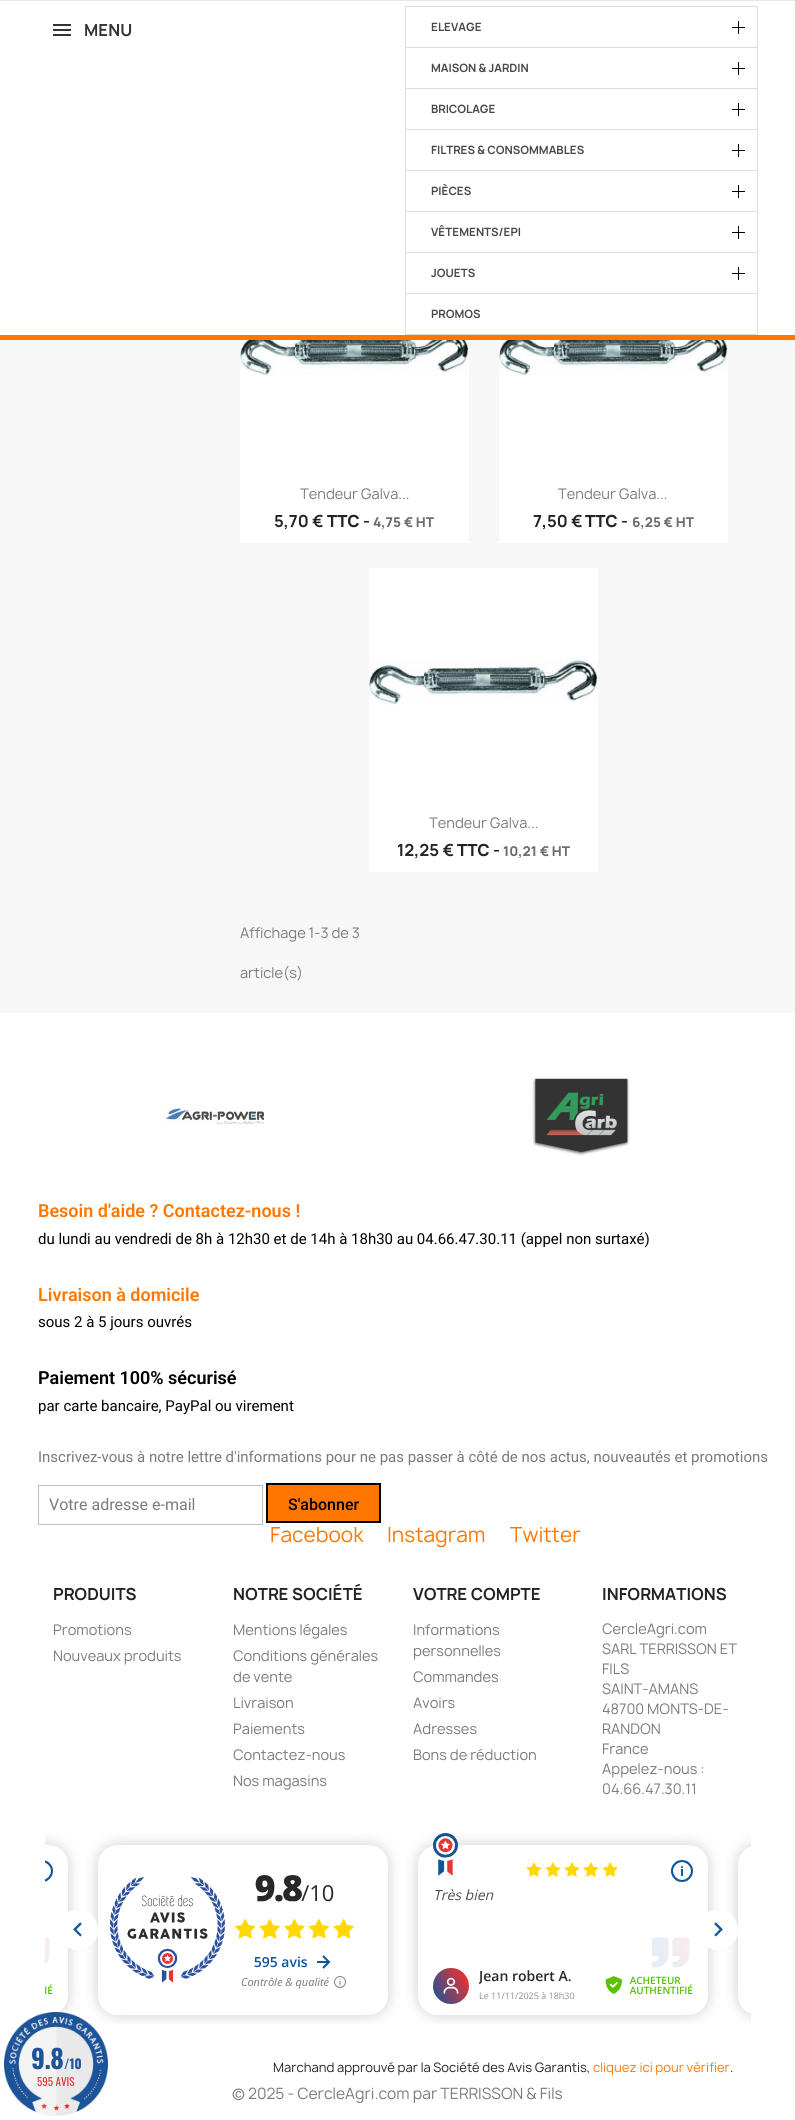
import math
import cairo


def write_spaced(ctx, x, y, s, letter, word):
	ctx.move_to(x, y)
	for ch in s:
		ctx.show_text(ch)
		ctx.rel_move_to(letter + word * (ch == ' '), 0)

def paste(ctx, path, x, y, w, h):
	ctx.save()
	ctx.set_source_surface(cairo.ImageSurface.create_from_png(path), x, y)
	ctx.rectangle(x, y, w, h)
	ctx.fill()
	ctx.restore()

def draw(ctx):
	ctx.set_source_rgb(1, 1, 1)
	ctx.paint()
	ctx.set_source_rgb(0.906, 0.906, 0.906)
	ctx.rectangle(0, 0, 795, 1)
	ctx.fill()
	ctx.set_source_rgb(1, 0.467, 0)
	ctx.rectangle(0, 335, 795, 5)
	ctx.fill()
	ctx.set_source_rgb(0.2, 0.2, 0.2)
	ctx.rectangle(53, 24, 18, 2)
	ctx.rectangle(53, 29, 18, 2)
	ctx.rectangle(53, 34, 18, 2)
	ctx.fill()
	ctx.select_font_face('Manrope', cairo.FONT_SLANT_NORMAL, cairo.FONT_WEIGHT_BOLD)
	ctx.set_font_size(16)
	ctx.move_to(84, 36)
	ctx.show_text('MENU')
	ctx.set_source_rgb(0.867, 0.867, 0.867)
	ctx.rectangle(405, 6, 353, 1)
	ctx.rectangle(757, 6, 1, 41)
	ctx.rectangle(405, 6, 1, 41)
	ctx.fill()
	ctx.set_font_size(11)
	ctx.set_source_rgb(0.282, 0.282, 0.282)
	ctx.move_to(431, 31)
	ctx.show_text('ELEVAGE')
	ctx.set_source_rgb(0, 0, 0)
	ctx.rectangle(732, 27, 13, 1)
	ctx.rectangle(738, 21, 1, 13)
	ctx.fill()
	ctx.set_source_rgb(0.867, 0.867, 0.867)
	ctx.rectangle(405, 47, 353, 1)
	ctx.rectangle(757, 47, 1, 41)
	ctx.rectangle(405, 47, 1, 41)
	ctx.fill()
	ctx.set_source_rgb(0.282, 0.282, 0.282)
	ctx.move_to(431, 72)
	ctx.show_text('MAISON & JARDIN')
	ctx.set_source_rgb(0, 0, 0)
	ctx.rectangle(732, 68, 13, 1)
	ctx.rectangle(738, 62, 1, 13)
	ctx.fill()
	ctx.set_source_rgb(0.867, 0.867, 0.867)
	ctx.rectangle(405, 88, 353, 1)
	ctx.rectangle(757, 88, 1, 41)
	ctx.rectangle(405, 88, 1, 41)
	ctx.fill()
	ctx.set_source_rgb(0.282, 0.282, 0.282)
	ctx.move_to(431, 113)
	ctx.show_text('BRICOLAGE')
	ctx.set_source_rgb(0, 0, 0)
	ctx.rectangle(732, 109, 13, 1)
	ctx.rectangle(738, 103, 1, 13)
	ctx.fill()
	ctx.set_source_rgb(0.867, 0.867, 0.867)
	ctx.rectangle(405, 129, 353, 1)
	ctx.rectangle(757, 129, 1, 41)
	ctx.rectangle(405, 129, 1, 41)
	ctx.fill()
	ctx.set_source_rgb(0.282, 0.282, 0.282)
	ctx.move_to(431, 154)
	ctx.show_text('FILTRES & CONSOMMABLES')
	ctx.set_source_rgb(0, 0, 0)
	ctx.rectangle(732, 150, 13, 1)
	ctx.rectangle(738, 144, 1, 13)
	ctx.fill()
	ctx.set_source_rgb(0.867, 0.867, 0.867)
	ctx.rectangle(405, 170, 353, 1)
	ctx.rectangle(757, 170, 1, 41)
	ctx.rectangle(405, 170, 1, 41)
	ctx.fill()
	ctx.set_source_rgb(0.282, 0.282, 0.282)
	ctx.move_to(431, 195)
	ctx.show_text('PIÈCES')
	ctx.set_source_rgb(0, 0, 0)
	ctx.rectangle(732, 191, 13, 1)
	ctx.rectangle(738, 185, 1, 13)
	ctx.fill()
	ctx.set_source_rgb(0.867, 0.867, 0.867)
	ctx.rectangle(405, 211, 353, 1)
	ctx.rectangle(757, 211, 1, 41)
	ctx.rectangle(405, 211, 1, 41)
	ctx.fill()
	ctx.set_source_rgb(0.282, 0.282, 0.282)
	ctx.move_to(431, 236)
	ctx.show_text('VÊTEMENTS/EPI')
	ctx.set_source_rgb(0, 0, 0)
	ctx.rectangle(732, 232, 13, 1)
	ctx.rectangle(738, 226, 1, 13)
	ctx.fill()
	ctx.set_source_rgb(0.867, 0.867, 0.867)
	ctx.rectangle(405, 252, 353, 1)
	ctx.rectangle(757, 252, 1, 41)
	ctx.rectangle(405, 252, 1, 41)
	ctx.fill()
	ctx.set_source_rgb(0.282, 0.282, 0.282)
	ctx.move_to(431, 277)
	ctx.show_text('JOUETS')
	ctx.set_source_rgb(0, 0, 0)
	ctx.rectangle(732, 273, 13, 1)
	ctx.fill()
	ctx.rectangle(738, 267, 1, 13)
	ctx.fill()
	ctx.rectangle(405.5, 293.5, 352, 41)
	ctx.set_source_rgb(0.867, 0.867, 0.867)
	ctx.set_line_width(1)
	ctx.stroke()
	ctx.set_source_rgb(0.282, 0.282, 0.282)
	ctx.move_to(431, 318)
	ctx.show_text('PROMOS')
	ctx.set_source_rgb(0.965, 0.965, 0.965)
	ctx.rectangle(0, 340, 795, 673)
	ctx.fill()
	ctx.set_source_rgb(1, 1, 1)
	ctx.rectangle(240, 376, 229, 167)
	ctx.fill()
	paste(ctx, 'media/1.png', 240, 340, 229, 36)
	ctx.select_font_face('Manrope')
	ctx.set_font_size(14)
	ctx.set_source_rgb(0.478, 0.478, 0.478)
	ctx.move_to(300, 499)
	ctx.show_text('Tendeur Galva...')
	ctx.select_font_face('Manrope', cairo.FONT_SLANT_NORMAL, cairo.FONT_WEIGHT_BOLD)
	ctx.set_font_size(16)
	ctx.set_source_rgb(0.137, 0.137, 0.137)
	ctx.move_to(274, 527)
	ctx.show_text('5,70 €')
	ctx.select_font_face('Manrope ExtraBold')
	ctx.move_to(327, 527)
	ctx.show_text('TTC')
	ctx.select_font_face('Manrope', cairo.FONT_SLANT_NORMAL, cairo.FONT_WEIGHT_BOLD)
	ctx.move_to(363, 527)
	ctx.show_text('-')
	ctx.select_font_face('Manrope ExtraBold')
	ctx.set_font_size(13)
	ctx.set_source_rgb(0.427, 0.427, 0.427)
	ctx.move_to(373, 527)
	ctx.show_text('4,75 € HT')
	ctx.set_source_rgb(1, 1, 1)
	ctx.rectangle(499, 376, 229, 167)
	ctx.fill()
	paste(ctx, 'media/1.png', 499, 340, 229, 36)
	ctx.select_font_face('Manrope')
	ctx.set_font_size(14)
	ctx.set_source_rgb(0.478, 0.478, 0.478)
	ctx.move_to(558, 499)
	ctx.show_text('Tendeur Galva...')
	ctx.select_font_face('Manrope', cairo.FONT_SLANT_NORMAL, cairo.FONT_WEIGHT_BOLD)
	ctx.set_font_size(16)
	ctx.set_source_rgb(0.137, 0.137, 0.137)
	ctx.move_to(533, 527)
	ctx.show_text('7,50 €')
	ctx.select_font_face('Manrope ExtraBold')
	ctx.move_to(585, 527)
	ctx.show_text('TTC')
	ctx.select_font_face('Manrope', cairo.FONT_SLANT_NORMAL, cairo.FONT_WEIGHT_BOLD)
	ctx.move_to(621, 527)
	ctx.show_text('-')
	ctx.select_font_face('Manrope ExtraBold')
	ctx.set_font_size(13)
	ctx.set_source_rgb(0.427, 0.427, 0.427)
	ctx.move_to(632, 527)
	ctx.show_text('6,25 € HT')
	ctx.set_source_rgb(1, 1, 1)
	ctx.rectangle(369, 568, 229, 304)
	ctx.fill()
	paste(ctx, 'media/2.png', 369, 656, 229, 49)
	ctx.select_font_face('Manrope')
	ctx.set_font_size(14)
	ctx.set_source_rgb(0.478, 0.478, 0.478)
	ctx.move_to(429, 828)
	ctx.show_text('Tendeur Galva...')
	ctx.select_font_face('Manrope', cairo.FONT_SLANT_NORMAL, cairo.FONT_WEIGHT_BOLD)
	ctx.set_font_size(16)
	ctx.set_source_rgb(0.137, 0.137, 0.137)
	ctx.move_to(397, 856)
	ctx.show_text('12,25 €')
	ctx.select_font_face('Manrope ExtraBold')
	ctx.move_to(457, 856)
	ctx.show_text('TTC')
	ctx.select_font_face('Manrope', cairo.FONT_SLANT_NORMAL, cairo.FONT_WEIGHT_BOLD)
	ctx.move_to(493, 856)
	ctx.show_text('-')
	ctx.select_font_face('Manrope ExtraBold')
	ctx.set_font_size(13)
	ctx.set_source_rgb(0.427, 0.427, 0.427)
	ctx.move_to(503, 856)
	ctx.show_text('10,21 € HT')
	ctx.select_font_face('Manrope')
	ctx.set_font_size(14)
	ctx.set_source_rgb(0.478, 0.478, 0.478)
	ctx.move_to(240, 938)
	ctx.show_text('Affichage 1-3 de 3')
	ctx.move_to(240, 978)
	ctx.show_text('article(s)')
	paste(ctx, 'media/3.png', 166, 1103, 98, 29)
	paste(ctx, 'media/4.png', 532, 1077, 98, 79)
	ctx.select_font_face('Roboto SemiBold')
	ctx.set_font_size(18)
	ctx.set_source_rgb(1, 0.467, 0)
	ctx.move_to(38, 1217)
	ctx.show_text('Besoin d\'aide ? Contactez-nous !')
	ctx.select_font_face('Roboto')
	ctx.set_font_size(15)
	ctx.set_source_rgb(0, 0, 0)
	ctx.move_to(38, 1244)
	ctx.show_text('du lundi au vendredi de 8h à 12h30 et de 14h à 18h30 au 04.66.47.30.11 (appel non surtaxé)')
	ctx.select_font_face('Roboto SemiBold')
	ctx.set_font_size(18)
	ctx.set_source_rgb(1, 0.467, 0)
	ctx.move_to(38, 1301)
	ctx.show_text('Livraison à domicile')
	ctx.select_font_face('Roboto')
	ctx.set_font_size(15)
	ctx.set_source_rgb(0, 0, 0)
	ctx.move_to(38, 1327)
	ctx.show_text('sous 2 à 5 jours ouvrés')
	ctx.select_font_face('Roboto SemiBold')
	ctx.set_font_size(18)
	ctx.move_to(38, 1384)
	ctx.show_text('Paiement 100% sécurisé')
	ctx.select_font_face('Roboto')
	ctx.set_font_size(15)
	ctx.move_to(38, 1411)
	ctx.show_text('par carte bancaire, PayPal ou virement')
	ctx.set_source_rgb(0.478, 0.478, 0.478)
	ctx.move_to(38, 1462)
	ctx.show_text('Inscrivez-vous à notre lettre d\'informations pour ne pas passer à côté de nos actus, nouveautés et promotions')
	ctx.rectangle(38.5, 1485.5, 224, 39)
	ctx.set_source_rgb(0.749, 0.749, 0.749)
	ctx.stroke()
	ctx.set_font_size(16)
	ctx.set_source_rgb(0.478, 0.478, 0.478)
	ctx.move_to(49, 1510)
	ctx.show_text('Votre adresse e-mail')
	ctx.set_source_rgb(1, 0.467, 0)
	ctx.rectangle(267, 1484, 113, 38)
	ctx.fill_preserve()
	ctx.set_source_rgb(0, 0, 0)
	ctx.set_line_width(2)
	ctx.stroke()
	ctx.select_font_face('Roboto Medium')
	ctx.move_to(288, 1510)
	ctx.show_text('S\'abonner')
	ctx.select_font_face('Manrope')
	ctx.set_font_size(20)
	ctx.set_source_rgb(1, 0.467, 0)
	for x, y, s in [
		(270, 1542, 'Facebook'),
		(387, 1542, 'Instagram'),
		(510, 1542, 'Twitter'),
	]:
		ctx.move_to(x, y)
		ctx.show_text(s)
	ctx.select_font_face('Manrope', cairo.FONT_SLANT_NORMAL, cairo.FONT_WEIGHT_BOLD)
	ctx.set_font_size(16)
	ctx.set_source_rgb(0.137, 0.137, 0.137)
	ctx.move_to(53, 1600)
	ctx.show_text('PRODUITS')
	ctx.select_font_face('Manrope')
	ctx.set_font_size(14)
	ctx.set_source_rgb(0.478, 0.478, 0.478)
	ctx.move_to(53, 1635)
	ctx.show_text('Promotions')
	ctx.move_to(53, 1661)
	ctx.show_text('Nouveaux produits')
	ctx.select_font_face('Manrope', cairo.FONT_SLANT_NORMAL, cairo.FONT_WEIGHT_BOLD)
	ctx.set_font_size(16)
	ctx.set_source_rgb(0.137, 0.137, 0.137)
	ctx.move_to(233, 1600)
	ctx.show_text('NOTRE SOCIÉTÉ')
	ctx.select_font_face('Manrope')
	ctx.set_font_size(14)
	ctx.set_source_rgb(0.478, 0.478, 0.478)
	for x, y, s in [
		(233, 1635, 'Mentions légales'),
		(233, 1661, 'Conditions générales'),
		(233, 1682, 'de vente'),
		(233, 1708, 'Livraison'),
		(233, 1734, 'Paiements'),
		(233, 1760, 'Contactez-nous'),
		(233, 1786, 'Nos magasins'),
	]:
		ctx.move_to(x, y)
		ctx.show_text(s)
	ctx.select_font_face('Manrope', cairo.FONT_SLANT_NORMAL, cairo.FONT_WEIGHT_BOLD)
	ctx.set_font_size(16)
	ctx.set_source_rgb(0.137, 0.137, 0.137)
	ctx.move_to(413, 1600)
	ctx.show_text('VOTRE COMPTE')
	ctx.select_font_face('Manrope')
	ctx.set_font_size(14)
	ctx.set_source_rgb(0.478, 0.478, 0.478)
	for x, y, s in [
		(413, 1635, 'Informations'),
		(413, 1656, 'personnelles'),
		(413, 1682, 'Commandes'),
		(413, 1708, 'Avoirs'),
		(413, 1734, 'Adresses'),
		(413, 1760, 'Bons de réduction'),
	]:
		ctx.move_to(x, y)
		ctx.show_text(s)
	ctx.select_font_face('Manrope', cairo.FONT_SLANT_NORMAL, cairo.FONT_WEIGHT_BOLD)
	ctx.set_font_size(16)
	ctx.set_source_rgb(0.137, 0.137, 0.137)
	ctx.move_to(602, 1600)
	ctx.show_text('INFORMATIONS')
	ctx.select_font_face('Manrope')
	ctx.set_font_size(14)
	ctx.set_source_rgb(0.478, 0.478, 0.478)
	for x, y, s in [
		(602, 1634, 'CercleAgri.com'),
		(602, 1654, 'SARL TERRISSON ET'),
		(602, 1674, 'FILS'),
		(602, 1694, 'SAINT-AMANS'),
		(602, 1714, '48700 MONTS-DE-'),
		(602, 1734, 'RANDON'),
		(602, 1754, 'France'),
		(602, 1774, 'Appelez-nous :'),
		(602, 1794, '04.66.47.30.11'),
	]:
		ctx.move_to(x, y)
		ctx.show_text(s)
	paste(ctx, 'media/5.png', 45, 1833, 706, 191)
	ctx.set_font_size(12.5)
	ctx.set_source_rgb(0.137, 0.137, 0.137)
	ctx.move_to(273, 2072)
	ctx.show_text('Marchand approuvé par la Société des Avis Garantis,')
	ctx.set_source_rgb(1, 0.467, 0)
	ctx.move_to(593, 2072)
	ctx.show_text('cliquez ici pour vérifier')
	ctx.set_source_rgb(0.137, 0.137, 0.137)
	ctx.move_to(730, 2072)
	ctx.show_text('.')
	ctx.set_font_size(15)
	ctx.set_source_rgb(0.478, 0.478, 0.478)
	ctx.move_to(232, 2099)
	ctx.show_text('© 2025 - CercleAgri.com par TERRISSON & Fils')
	paste(ctx, 'media/6.png', 4, 2012, 104, 104)
	ctx.select_font_face('Oswald', cairo.FONT_SLANT_NORMAL, cairo.FONT_WEIGHT_BOLD)
	ctx.set_font_size(26)
	ctx.set_source_rgb(0.11, 0.325, 0.6)
	write_spaced(ctx, 31, 2069, '9.8', -0.5, 0)
	ctx.set_font_size(13)
	ctx.move_to(64, 2069)
	ctx.show_text('/10')
	ctx.select_font_face('Oswald')
	ctx.set_font_size(11)
	ctx.set_source_rgb(0.898, 0.192, 0.204)
	ctx.move_to(37, 2086)
	ctx.show_text('595 AVIS')


surface = cairo.ImageSurface(cairo.FORMAT_RGB24, 795, 2120)
ctx = cairo.Context(surface)
options = cairo.FontOptions()
options.set_hint_metrics(cairo.HINT_METRICS_OFF)
options.set_hint_style(cairo.HINT_STYLE_NONE)
ctx.set_font_options(options)
ctx.set_miter_limit(4)
draw(ctx)
surface.write_to_png('image.png')
